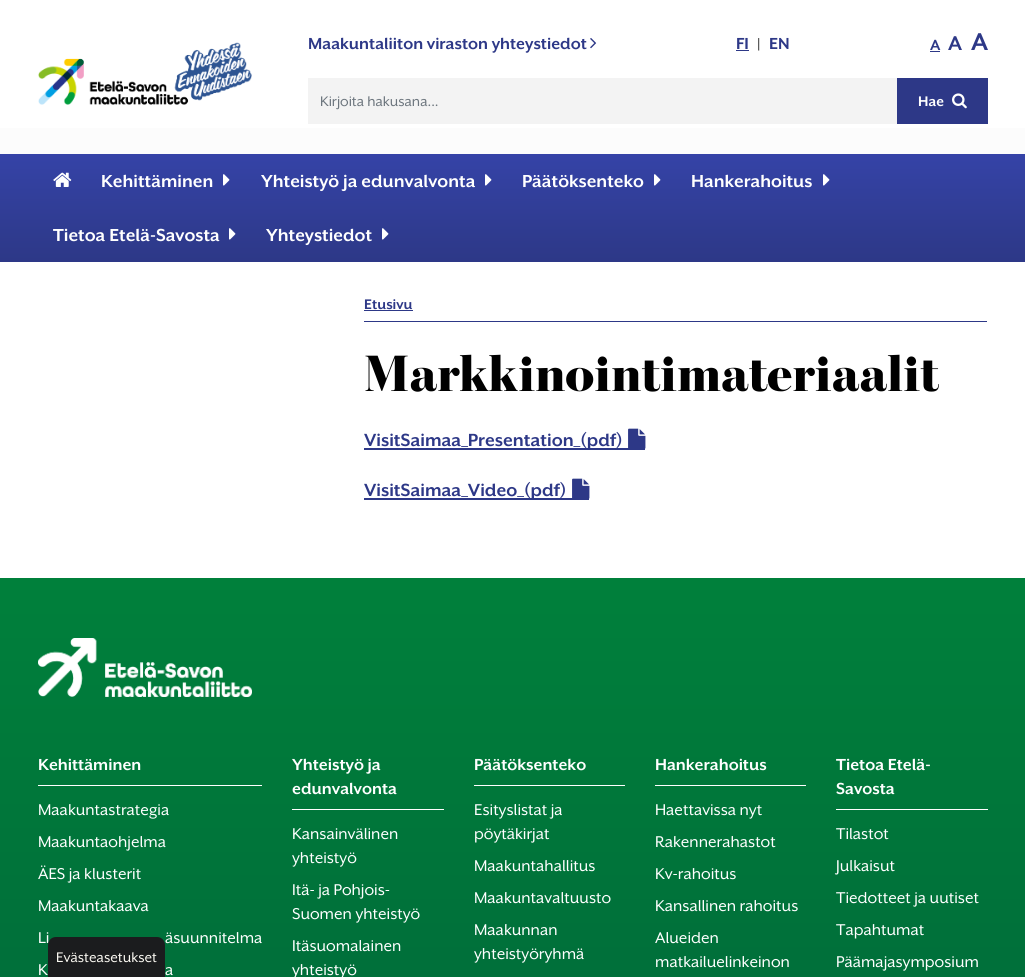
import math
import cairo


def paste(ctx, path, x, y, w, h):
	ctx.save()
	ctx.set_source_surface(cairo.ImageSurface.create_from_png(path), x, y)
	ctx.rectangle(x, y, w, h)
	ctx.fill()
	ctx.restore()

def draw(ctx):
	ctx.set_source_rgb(1, 1, 1)
	ctx.paint()
	gradient = cairo.LinearGradient(513, 0, 513, 154)
	gradient.add_color_stop_rgba(0, 1, 1, 1, 1)
	gradient.add_color_stop_rgba(1, 0.988, 0.988, 0.988, 1)
	ctx.set_source(gradient)
	ctx.rectangle(0, 128, 1025, 26)
	ctx.fill()
	paste(ctx, 'media/1.png', 38, 42, 214, 63)
	ctx.select_font_face('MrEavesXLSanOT', cairo.FONT_SLANT_NORMAL, cairo.FONT_WEIGHT_BOLD)
	ctx.set_font_size(18.4)
	ctx.set_source_rgb(0.176, 0.22, 0.529)
	ctx.move_to(308, 49)
	ctx.show_text('Maakuntaliiton viraston yhteystiedot')
	paste(ctx, 'media/2.png', 590, 38, 7, 11)
	ctx.move_to(736, 49)
	ctx.show_text('FI')
	ctx.rectangle(736, 50, 13, 1)
	ctx.fill()
	ctx.select_font_face('MrEavesXLSanOT')
	ctx.set_font_size(16)
	ctx.set_source_rgb(0, 0, 0)
	ctx.move_to(757, 49)
	ctx.show_text('|')
	ctx.select_font_face('MrEavesXLSanOT', cairo.FONT_SLANT_NORMAL, cairo.FONT_WEIGHT_BOLD)
	ctx.set_font_size(18.4)
	ctx.set_source_rgb(0.176, 0.22, 0.529)
	ctx.move_to(769, 49)
	ctx.show_text('EN')
	ctx.set_font_size(17)
	ctx.move_to(930, 50)
	ctx.show_text('A')
	ctx.rectangle(930, 51, 10, 1)
	ctx.fill()
	ctx.set_font_size(23)
	ctx.move_to(948, 50)
	ctx.show_text('A')
	ctx.set_font_size(28)
	ctx.move_to(971, 50)
	ctx.show_text('A')
	ctx.set_source_rgb(0.953, 0.953, 0.953)
	ctx.rectangle(308, 78, 589, 46)
	ctx.fill()
	ctx.select_font_face('MrEavesXLSanOT')
	ctx.set_font_size(16)
	ctx.set_source_rgb(0.424, 0.459, 0.49)
	ctx.move_to(320, 106)
	ctx.show_text('Kirjoita hakusana...')
	ctx.set_source_rgb(0.176, 0.22, 0.529)
	ctx.rectangle(897, 78, 91, 46)
	ctx.fill()
	ctx.select_font_face('MrEavesXLSanOT', cairo.FONT_SLANT_NORMAL, cairo.FONT_WEIGHT_BOLD)
	ctx.set_source_rgb(1, 1, 1)
	ctx.move_to(918, 106)
	ctx.show_text('Hae')
	paste(ctx, 'media/3.png', 952, 93, 15, 16)
	gradient = cairo.LinearGradient(513, 154, 513, 262)
	gradient.add_color_stop_rgba(0, 0.208, 0.263, 0.655, 1)
	gradient.add_color_stop_rgba(1, 0.176, 0.22, 0.529, 1)
	ctx.set_source(gradient)
	ctx.rectangle(0, 154, 1025, 108)
	ctx.fill()
	paste(ctx, 'media/4.png', 53, 172, 19, 15)
	ctx.set_font_size(20)
	ctx.set_source_rgb(1, 1, 1)
	ctx.move_to(101, 187)
	ctx.show_text('Kehittäminen')
	paste(ctx, 'media/5.png', 223, 174, 7, 12)
	ctx.move_to(261, 187)
	ctx.show_text('Yhteistyö ja edunvalvonta')
	paste(ctx, 'media/5.png', 485, 174, 7, 12)
	ctx.move_to(522, 187)
	ctx.show_text('Päätöksenteko')
	paste(ctx, 'media/5.png', 654, 174, 7, 12)
	ctx.move_to(691, 187)
	ctx.show_text('Hankerahoitus')
	paste(ctx, 'media/5.png', 823, 174, 7, 12)
	ctx.move_to(53, 241)
	ctx.show_text('Tietoa Etelä-Savosta')
	paste(ctx, 'media/6.png', 229, 228, 7, 12)
	ctx.move_to(266, 241)
	ctx.show_text('Yhteystiedot')
	paste(ctx, 'media/6.png', 382, 228, 7, 12)
	ctx.set_source_rgb(0.176, 0.22, 0.529)
	ctx.rectangle(364, 321, 623, 1)
	ctx.fill()
	ctx.set_font_size(16)
	ctx.move_to(364, 309)
	ctx.show_text('Etusivu')
	ctx.rectangle(364, 310, 49, 1)
	ctx.fill()
	ctx.select_font_face('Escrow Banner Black')
	ctx.set_font_size(51.25)
	ctx.set_source_rgb(0, 0, 0)
	ctx.move_to(364, 391)
	ctx.show_text('Markkinointimateriaalit')
	ctx.set_source_rgb(0.176, 0.22, 0.529)
	ctx.rectangle(364, 448, 281, 2)
	ctx.fill()
	ctx.select_font_face('MrEavesXLSanOT', cairo.FONT_SLANT_NORMAL, cairo.FONT_WEIGHT_BOLD)
	ctx.set_font_size(20.25)
	ctx.move_to(364, 446)
	ctx.show_text('VisitSaimaa_Presentation_(pdf)')
	paste(ctx, 'media/7.png', 628, 428, 18, 21)
	ctx.rectangle(364, 498, 225, 2)
	ctx.fill()
	ctx.move_to(364, 496)
	ctx.show_text('VisitSaimaa_Video_(pdf)')
	paste(ctx, 'media/7.png', 572, 478, 18, 21)
	gradient = cairo.LinearGradient(513, 578, 513, 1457)
	gradient.add_color_stop_rgba(0, 0, 0.502, 0.231, 1)
	gradient.add_color_stop_rgba(1, 0, 0.357, 0.22, 1)
	ctx.set_source(gradient)
	ctx.rectangle(0, 578, 1025, 399)
	ctx.fill()
	paste(ctx, 'media/8.png', 38, 638, 214, 59)
	ctx.set_source_rgb(1, 1, 1)
	ctx.rectangle(38, 785, 224, 1)
	ctx.fill()
	ctx.set_font_size(18.4)
	ctx.move_to(38, 770)
	ctx.show_text('Kehittäminen')
	ctx.select_font_face('MrEavesXLSanOT')
	ctx.set_font_size(18)
	for x, y, s in [
		(38, 815, 'Maakuntastrategia'),
		(38, 847, 'Maakuntaohjelma'),
		(38, 879, 'ÄES ja klusterit'),
		(38, 911, 'Maakuntakaava'),
		(38, 943, 'Li'),
		(165, 943, 'äsuunnitelma'),
		(38, 975, 'K'),
		(165, 975, 'a'),
	]:
		ctx.move_to(x, y)
		ctx.show_text(s)
	ctx.rectangle(292, 809, 152, 1)
	ctx.fill()
	ctx.select_font_face('MrEavesXLSanOT', cairo.FONT_SLANT_NORMAL, cairo.FONT_WEIGHT_BOLD)
	ctx.set_font_size(18.4)
	ctx.move_to(292, 770)
	ctx.show_text('Yhteistyö ja')
	ctx.move_to(292, 794)
	ctx.show_text('edunvalvonta')
	ctx.select_font_face('MrEavesXLSanOT')
	ctx.set_font_size(18)
	for x, y, s in [
		(292, 839, 'Kansainvälinen'),
		(292, 863, 'yhteistyö'),
		(292, 895, 'Itä- ja Pohjois-'),
		(292, 919, 'Suomen yhteistyö'),
		(292, 951, 'Itäsuomalainen'),
		(292, 975, 'yhteistyö'),
	]:
		ctx.move_to(x, y)
		ctx.show_text(s)
	ctx.rectangle(474, 785, 151, 1)
	ctx.fill()
	ctx.select_font_face('MrEavesXLSanOT', cairo.FONT_SLANT_NORMAL, cairo.FONT_WEIGHT_BOLD)
	ctx.set_font_size(18.4)
	ctx.move_to(474, 770)
	ctx.show_text('Päätöksenteko')
	ctx.select_font_face('MrEavesXLSanOT')
	ctx.set_font_size(18)
	for x, y, s in [
		(474, 815, 'Esityslistat ja'),
		(474, 839, 'pöytäkirjat'),
		(474, 871, 'Maakuntahallitus'),
		(474, 903, 'Maakuntavaltuusto'),
		(474, 935, 'Maakunnan'),
		(474, 959, 'yhteistyöryhmä'),
	]:
		ctx.move_to(x, y)
		ctx.show_text(s)
	ctx.rectangle(655, 785, 151, 1)
	ctx.fill()
	ctx.select_font_face('MrEavesXLSanOT', cairo.FONT_SLANT_NORMAL, cairo.FONT_WEIGHT_BOLD)
	ctx.set_font_size(18.4)
	ctx.move_to(655, 770)
	ctx.show_text('Hankerahoitus')
	ctx.select_font_face('MrEavesXLSanOT')
	ctx.set_font_size(18)
	for x, y, s in [
		(655, 815, 'Haettavissa nyt'),
		(655, 847, 'Rakennerahastot'),
		(655, 879, 'Kv-rahoitus'),
		(655, 911, 'Kansallinen rahoitus'),
		(655, 943, 'Alueiden'),
		(655, 967, 'matkailuelinkeinon'),
	]:
		ctx.move_to(x, y)
		ctx.show_text(s)
	ctx.rectangle(836, 809, 152, 1)
	ctx.fill()
	ctx.select_font_face('MrEavesXLSanOT', cairo.FONT_SLANT_NORMAL, cairo.FONT_WEIGHT_BOLD)
	ctx.set_font_size(18.4)
	ctx.move_to(836, 770)
	ctx.show_text('Tietoa Etelä-')
	ctx.move_to(836, 794)
	ctx.show_text('Savosta')
	ctx.select_font_face('MrEavesXLSanOT')
	ctx.set_font_size(18)
	for x, y, s in [
		(836, 839, 'Tilastot'),
		(836, 871, 'Julkaisut'),
		(836, 903, 'Tiedotteet ja uutiset'),
		(836, 935, 'Tapahtumat'),
		(836, 967, 'Päämajasymposium'),
	]:
		ctx.move_to(x, y)
		ctx.show_text(s)
	ctx.set_source_rgb(0.106, 0.11, 0.118)
	ctx.new_path()
	ctx.move_to(56, 937)
	ctx.line_to(157, 937)
	ctx.curve_to(161.5, 937, 165, 940.5, 165, 945)
	ctx.line_to(165, 977)
	ctx.line_to(48, 977)
	ctx.line_to(48, 945)
	ctx.curve_to(48, 940.5, 51.5, 937, 56, 937)
	ctx.close_path()
	ctx.fill()
	ctx.set_font_size(16)
	ctx.set_source_rgb(0.984, 0.976, 0.949)
	ctx.move_to(56, 962)
	ctx.show_text('Evästeasetukset')


surface = cairo.ImageSurface(cairo.FORMAT_RGB24, 1025, 977)
ctx = cairo.Context(surface)
options = cairo.FontOptions()
options.set_hint_metrics(cairo.HINT_METRICS_OFF)
options.set_hint_style(cairo.HINT_STYLE_NONE)
ctx.set_font_options(options)
ctx.set_miter_limit(4)
draw(ctx)
surface.write_to_png('image.png')
